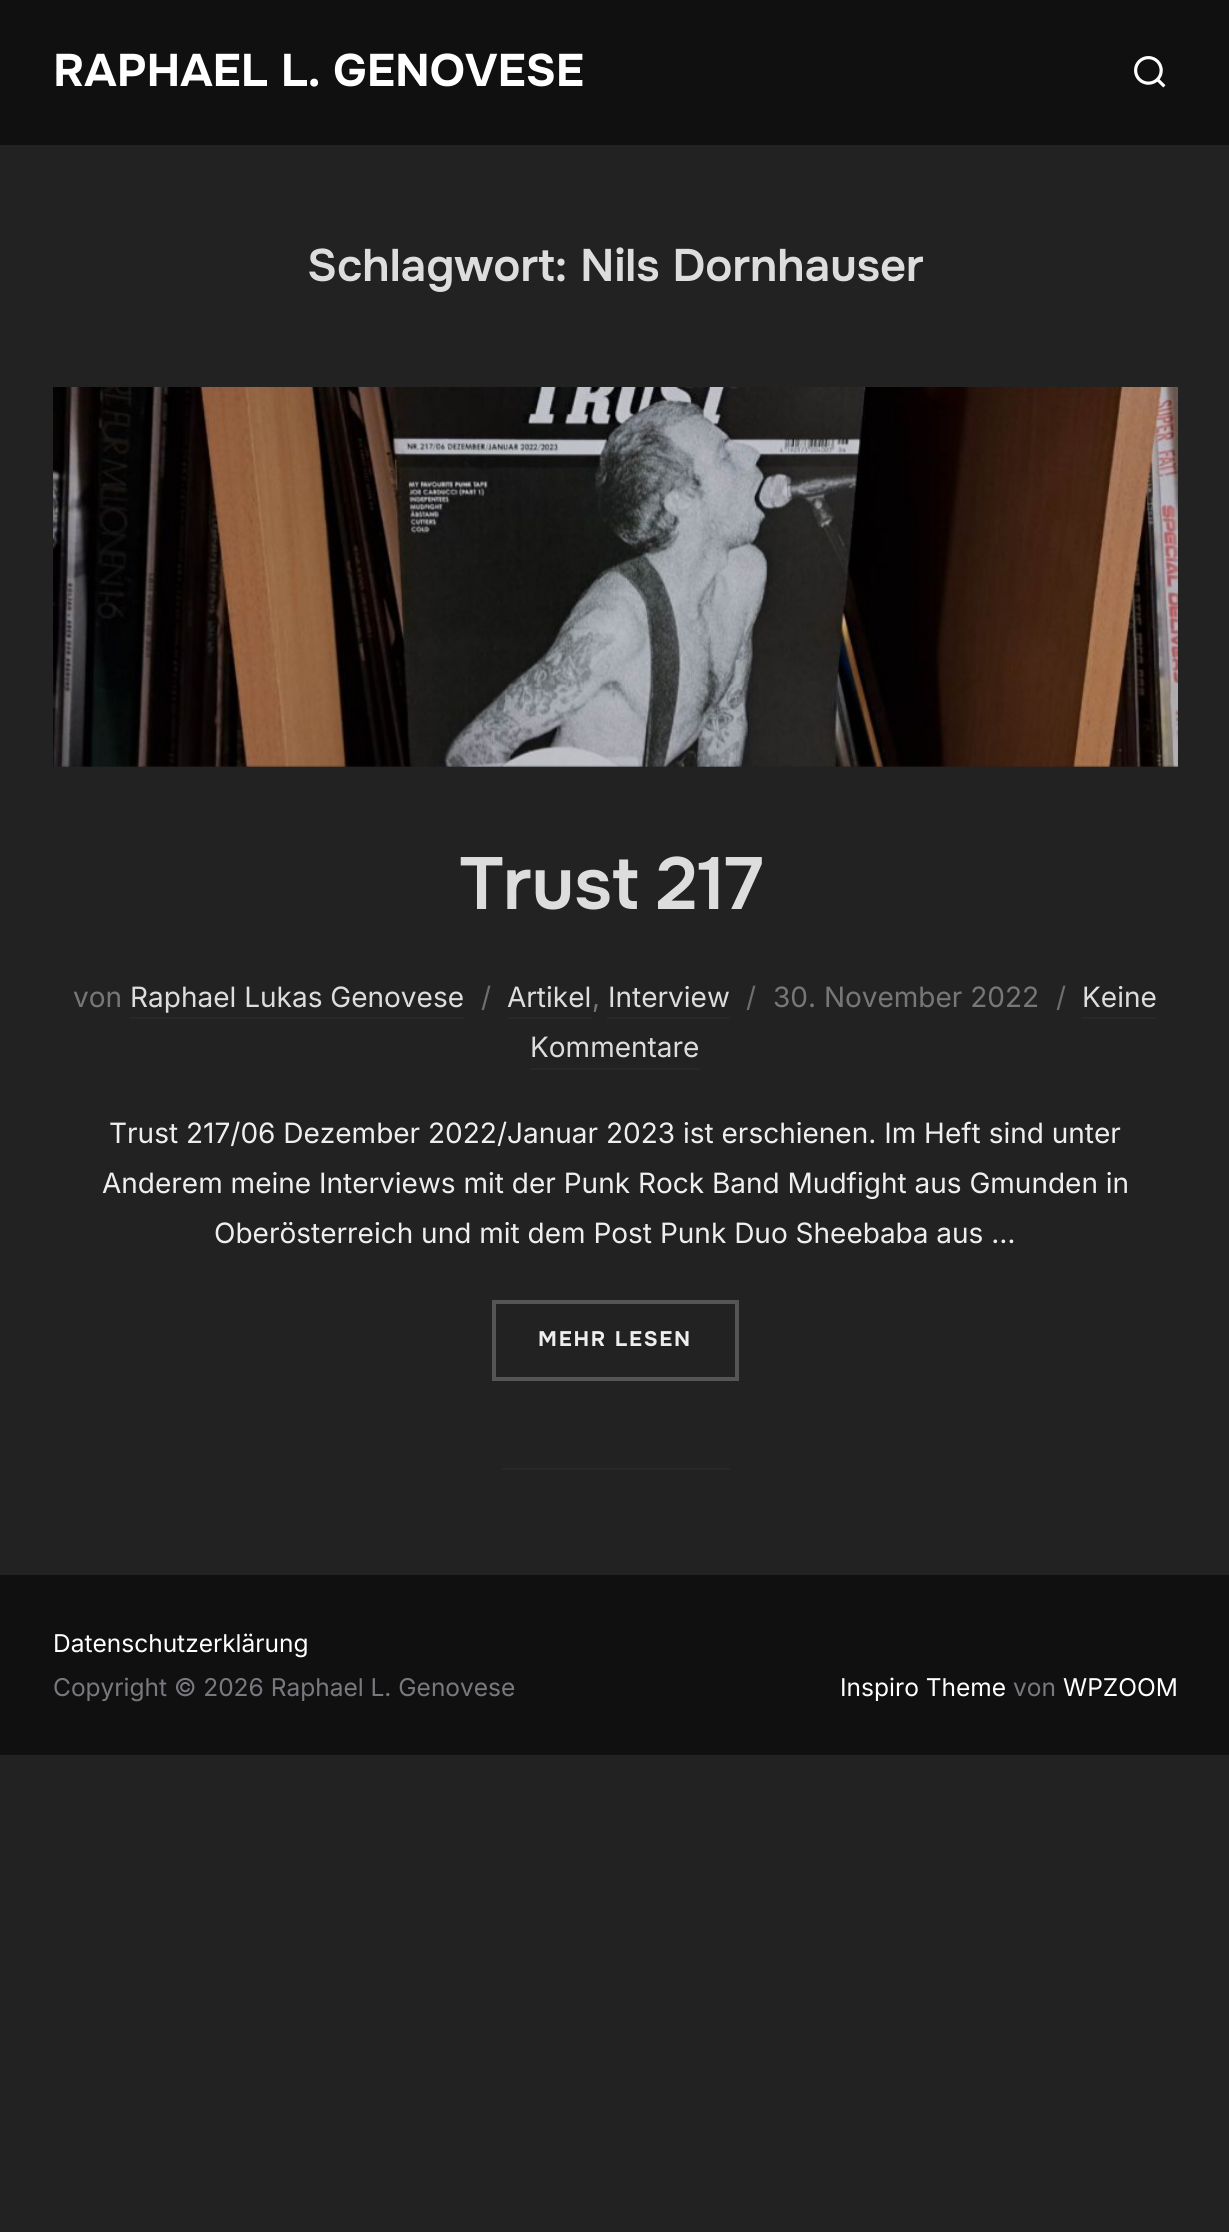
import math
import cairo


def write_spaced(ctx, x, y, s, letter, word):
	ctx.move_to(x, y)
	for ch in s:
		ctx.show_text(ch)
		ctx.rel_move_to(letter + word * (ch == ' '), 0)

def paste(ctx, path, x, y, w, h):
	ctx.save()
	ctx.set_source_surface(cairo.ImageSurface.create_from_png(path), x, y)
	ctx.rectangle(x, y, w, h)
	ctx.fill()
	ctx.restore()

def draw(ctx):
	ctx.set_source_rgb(0.133, 0.133, 0.133)
	ctx.paint()
	ctx.set_source_rgb(0.063, 0.063, 0.063)
	ctx.rectangle(0, 0, 1229, 145)
	ctx.fill()
	ctx.select_font_face('Onest', cairo.FONT_SLANT_NORMAL, cairo.FONT_WEIGHT_BOLD)
	ctx.set_font_size(45.5)
	ctx.set_source_rgb(1, 1, 1)
	ctx.move_to(53, 86)
	ctx.show_text('RAPHAEL L. GENOVESE')
	paste(ctx, 'media/1.png', 1134, 56, 32, 32)
	ctx.select_font_face('Onest SemiBold')
	ctx.set_source_rgb(0.867, 0.867, 0.867)
	ctx.move_to(307, 281)
	ctx.show_text('Schlagwort: Nils Dornhauser')
	paste(ctx, 'media/2.png', 53, 387, 1125, 380)
	ctx.set_font_size(73.5)
	write_spaced(ctx, 460, 909, 'Trust 217', 0, -3)
	ctx.select_font_face('Inter')
	ctx.set_font_size(28)
	ctx.set_source_rgb(0.467, 0.467, 0.467)
	ctx.move_to(73, 1007)
	ctx.show_text('von')
	ctx.set_source_rgb(0.867, 0.867, 0.867)
	ctx.move_to(130, 1007)
	ctx.show_text('Raphael Lukas Genovese')
	ctx.set_source_rgb(0.157, 0.157, 0.157)
	ctx.rectangle(130, 1017, 334, 2)
	ctx.fill()
	ctx.set_source_rgb(0.424, 0.431, 0.435)
	ctx.move_to(481, 1007)
	ctx.show_text('/')
	ctx.set_source_rgb(0.867, 0.867, 0.867)
	ctx.move_to(507, 1007)
	ctx.show_text('Artikel')
	ctx.set_source_rgb(0.467, 0.467, 0.467)
	ctx.move_to(592, 1007)
	ctx.show_text(',')
	ctx.set_source_rgb(0.157, 0.157, 0.157)
	ctx.rectangle(508, 1017, 84, 2)
	ctx.fill()
	ctx.rectangle(607, 1017, 123, 2)
	ctx.fill()
	ctx.set_source_rgb(0.867, 0.867, 0.867)
	ctx.move_to(608, 1007)
	ctx.show_text('Interview')
	ctx.set_source_rgb(0.424, 0.431, 0.435)
	ctx.move_to(746, 1007)
	ctx.show_text('/')
	ctx.set_source_rgb(0.467, 0.467, 0.467)
	ctx.move_to(773, 1007)
	ctx.show_text('30. November 2022')
	ctx.set_source_rgb(0.424, 0.431, 0.435)
	ctx.move_to(1056, 1007)
	ctx.show_text('/')
	ctx.set_source_rgb(0.867, 0.867, 0.867)
	ctx.move_to(1082, 1007)
	ctx.show_text('Keine')
	ctx.set_source_rgb(0.157, 0.157, 0.157)
	ctx.rectangle(1082, 1017, 75, 2)
	ctx.fill()
	ctx.set_source_rgb(0.867, 0.867, 0.867)
	ctx.move_to(530, 1057)
	ctx.show_text('Kommentare')
	ctx.set_source_rgb(0.157, 0.157, 0.157)
	ctx.rectangle(530, 1068, 170, 2)
	ctx.fill()
	ctx.set_source_rgb(0.933, 0.933, 0.933)
	for x, y, s in [
		(109, 1143, 'Trust 217/06 Dezember 2022/Januar 2023 ist erschienen. Im Heft sind unter'),
		(102, 1193, 'Anderem meine Interviews mit der Punk Rock Band Mudfight aus Gmunden in'),
		(214, 1243, 'Oberösterreich und mit dem Post Punk Duo Sheebaba aus …'),
	]:
		ctx.move_to(x, y)
		ctx.show_text(s)
	ctx.rectangle(494, 1302, 243, 77)
	ctx.set_source_rgb(0.333, 0.333, 0.333)
	ctx.set_line_width(4)
	ctx.stroke()
	ctx.select_font_face('Onest', cairo.FONT_SLANT_NORMAL, cairo.FONT_WEIGHT_BOLD)
	ctx.set_font_size(21)
	ctx.set_source_rgb(0.933, 0.933, 0.933)
	write_spaced(ctx, 538, 1346, 'MEHR LESEN', 1.75, 0)
	ctx.set_source_rgb(0.157, 0.157, 0.157)
	ctx.rectangle(502, 1468, 228, 2)
	ctx.fill()
	ctx.set_source_rgb(0.063, 0.063, 0.063)
	ctx.rectangle(0, 1575, 1229, 180)
	ctx.fill()
	ctx.select_font_face('Inter')
	ctx.set_font_size(24.5)
	ctx.set_source_rgb(1, 1, 1)
	ctx.move_to(53, 1652)
	ctx.show_text('Datenschutzerklärung')
	ctx.set_source_rgb(0.471, 0.471, 0.498)
	ctx.move_to(53, 1696)
	ctx.show_text('Copyright © 2026 Raphael L. Genovese')
	ctx.set_source_rgb(1, 1, 1)
	ctx.move_to(840, 1696)
	ctx.show_text('Inspiro Theme')
	ctx.set_source_rgb(0.471, 0.471, 0.498)
	ctx.move_to(1013, 1696)
	ctx.show_text('von')
	ctx.set_source_rgb(1, 1, 1)
	ctx.move_to(1063, 1696)
	ctx.show_text('WPZOOM')


surface = cairo.ImageSurface(cairo.FORMAT_RGB24, 1229, 2232)
ctx = cairo.Context(surface)
options = cairo.FontOptions()
options.set_hint_metrics(cairo.HINT_METRICS_OFF)
options.set_hint_style(cairo.HINT_STYLE_NONE)
ctx.set_font_options(options)
ctx.set_miter_limit(4)
draw(ctx)
surface.write_to_png('image.png')
